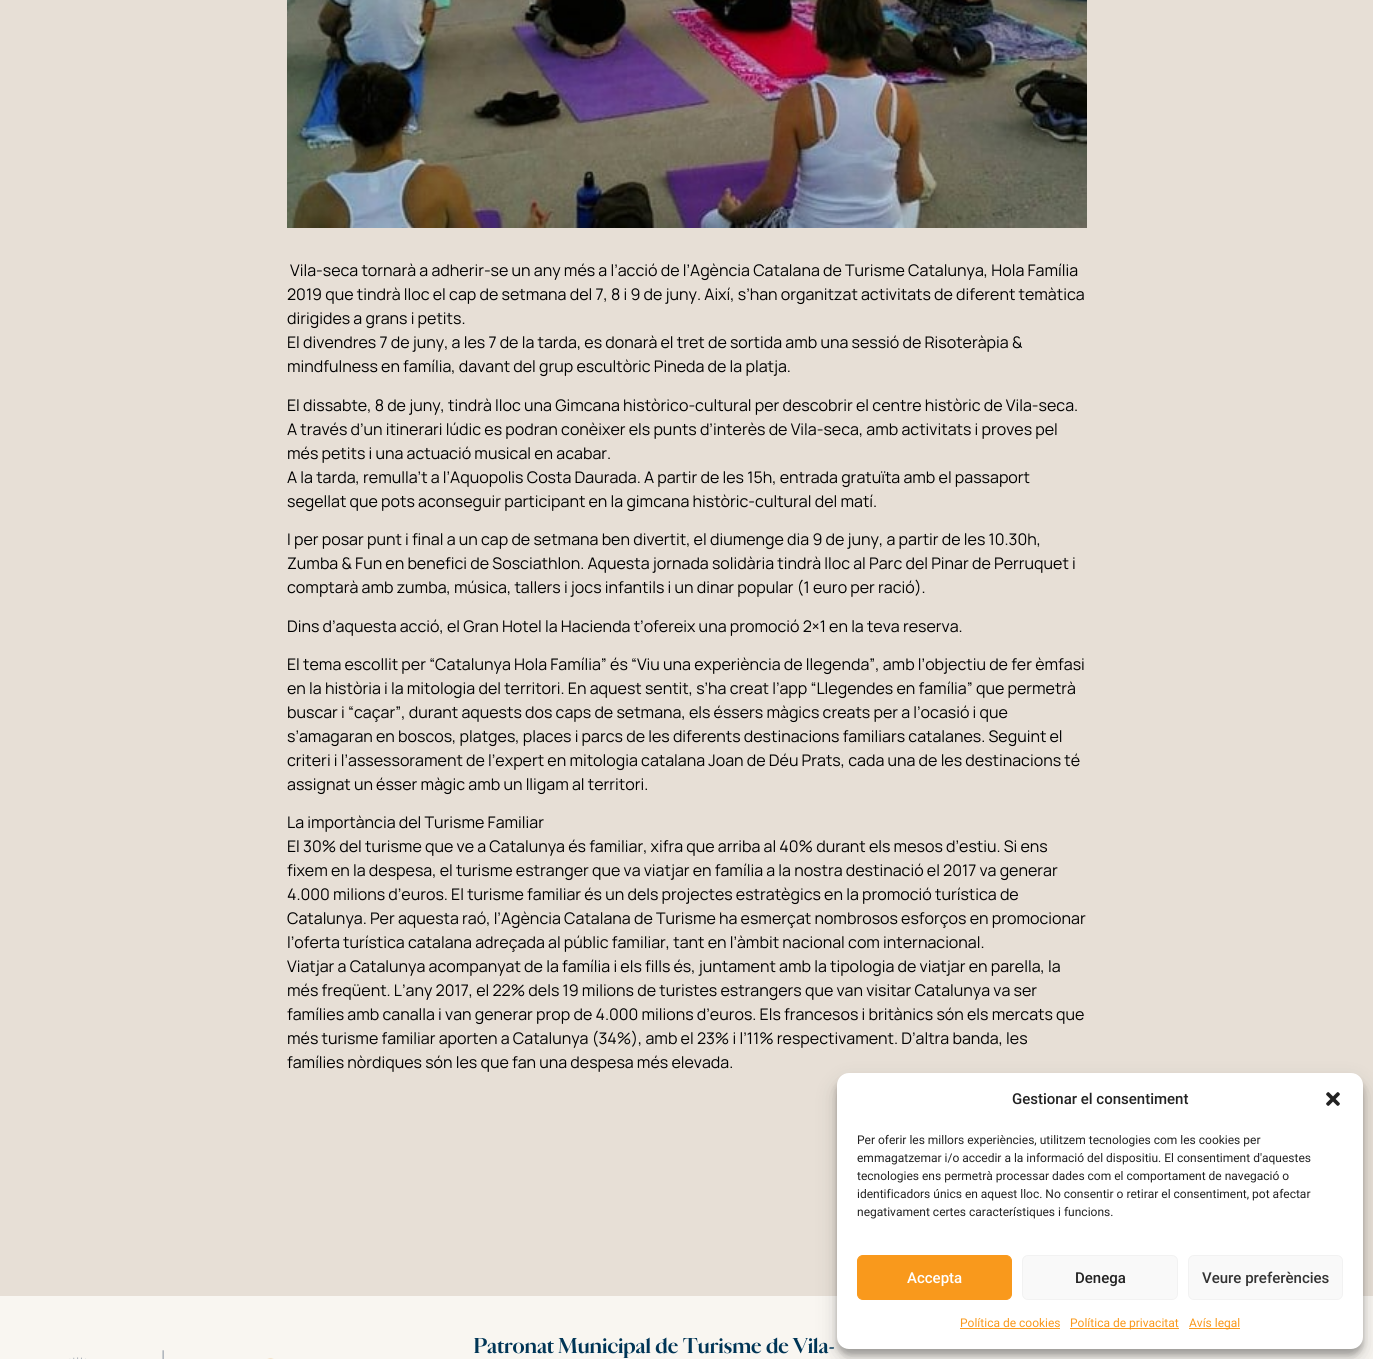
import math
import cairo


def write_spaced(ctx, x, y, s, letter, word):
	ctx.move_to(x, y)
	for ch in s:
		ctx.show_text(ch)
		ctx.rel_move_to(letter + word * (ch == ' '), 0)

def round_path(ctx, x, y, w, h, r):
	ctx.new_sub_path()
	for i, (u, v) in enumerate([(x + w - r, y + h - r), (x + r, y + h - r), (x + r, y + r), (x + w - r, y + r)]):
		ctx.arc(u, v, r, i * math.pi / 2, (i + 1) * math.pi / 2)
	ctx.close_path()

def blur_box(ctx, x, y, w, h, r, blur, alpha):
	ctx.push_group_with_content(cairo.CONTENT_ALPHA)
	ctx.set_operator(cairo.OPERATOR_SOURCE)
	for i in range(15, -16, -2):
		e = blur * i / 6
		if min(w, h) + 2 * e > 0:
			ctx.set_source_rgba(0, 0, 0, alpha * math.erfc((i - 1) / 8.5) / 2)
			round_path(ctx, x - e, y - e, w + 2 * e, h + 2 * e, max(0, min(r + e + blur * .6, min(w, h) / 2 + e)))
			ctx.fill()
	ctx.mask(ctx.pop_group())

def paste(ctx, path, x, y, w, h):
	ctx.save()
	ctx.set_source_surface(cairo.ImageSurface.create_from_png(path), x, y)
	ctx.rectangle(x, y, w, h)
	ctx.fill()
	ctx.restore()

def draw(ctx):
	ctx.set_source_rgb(0.906, 0.875, 0.839)
	ctx.paint()
	paste(ctx, 'media/1.png', 287, 0, 800, 228)
	ctx.select_font_face('Manrope')
	ctx.set_font_size(16)
	ctx.set_source_rgb(0, 0, 0)
	for x, y, s in [
		(290, 276, 'Vila-seca tornarà a adherir-se un any més a l’acció de l’Agència Catalana de Turisme Catalunya, Hola Família'),
		(287, 300, '2019 que tindrà lloc el cap de setmana del 7, 8 i 9 de juny. Així, s’han organitzat activitats de diferent temàtica'),
		(287, 324, 'dirigides a grans i petits.'),
		(287, 348, 'El divendres 7 de juny, a les 7 de la tarda, es donarà el tret de sortida amb una sessió de Risoteràpia &'),
		(287, 372, 'mindfulness en família, davant del grup escultòric Pineda de la platja.'),
		(287, 411, 'El dissabte, 8 de juny, tindrà lloc una Gimcana històrico-cultural per descobrir el centre històric de Vila-seca.'),
		(287, 435, 'A través d’un itinerari lúdic es podran conèixer els punts d’interès de Vila-seca, amb activitats i proves pel'),
		(287, 459, 'més petits i una actuació musical en acabar.'),
		(287, 483, 'A la tarda, remulla’t a l’Aquopolis Costa Daurada. A partir de les 15h, entrada gratuïta amb el passaport'),
		(287, 507, 'segellat que pots aconseguir participant en la gimcana històric-cultural del matí.'),
		(287, 545, 'I per posar punt i final a un cap de setmana ben divertit, el diumenge dia 9 de juny, a partir de les 10.30h,'),
		(287, 569, 'Zumba & Fun en benefici de Sosciathlon. Aquesta jornada solidària tindrà lloc al Parc del Pinar de Perruquet i'),
		(287, 593, 'comptarà amb zumba, música, tallers i jocs infantils i un dinar popular (1 euro per ració).'),
		(287, 632, 'Dins d’aquesta acció, el Gran Hotel la Hacienda t’ofereix una promoció 2×1 en la teva reserva.'),
		(287, 670, 'El tema escollit per “Catalunya Hola Família” és “Viu una experiència de llegenda”, amb l’objectiu de fer èmfasi'),
		(287, 694, 'en la història i la mitologia del territori. En aquest sentit, s’ha creat l’app “Llegendes en família” que permetrà'),
		(287, 718, 'buscar i “caçar”, durant aquests dos caps de setmana, els éssers màgics creats per a l’ocasió i que'),
		(287, 742, 's’amagaran en boscos, platges, places i parcs de les diferents destinacions familiars catalanes. Seguint el'),
		(287, 766, 'criteri i l’assessorament de l’expert en mitologia catalana Joan de Déu Prats, cada una de les destinacions té'),
		(287, 790, 'assignat un ésser màgic amb un lligam al territori.'),
		(287, 828, 'La importància del Turisme Familiar'),
		(287, 852, 'El 30% del turisme que ve a Catalunya és familiar, xifra que arriba al 40% durant els mesos d’estiu. Si ens'),
		(287, 876, 'fixem en la despesa, el turisme estranger que va viatjar en família a la nostra destinació el 2017 va generar'),
		(287, 900, '4.000 milions d’euros. El turisme familiar és un dels projectes estratègics en la promoció turística de'),
		(287, 924, 'Catalunya. Per aquesta raó, l’Agència Catalana de Turisme ha esmerçat nombrosos esforços en promocionar'),
		(287, 948, 'l’oferta turística catalana adreçada al públic familiar, tant en l’àmbit nacional com internacional.'),
		(287, 972, 'Viatjar a Catalunya acompanyat de la família i els fills és, juntament amb la tipologia de viatjar en parella, la'),
		(287, 996, 'més freqüent. L’any 2017, el 22% dels 19 milions de turistes estrangers que van visitar Catalunya va ser'),
		(287, 1020, 'famílies amb canalla i van generar prop de 4.000 milions d’euros. Els francesos i britànics són els mercats que'),
		(287, 1044, 'més turisme familiar aporten a Catalunya (34%), amb el 23% i l’11% respectivament. D’altra banda, les'),
		(287, 1068, 'famílies nòrdiques són les que fan una despesa més elevada.'),
	]:
		ctx.move_to(x, y)
		ctx.show_text(s)
	ctx.set_source_rgb(0.973, 0.961, 0.945)
	ctx.rectangle(0, 1296, 1373, 63)
	ctx.fill()
	ctx.set_source_rgb(0, 0, 0)
	blur_box(ctx, 837, 1079, 526, 276, 12, 3, 0.23)
	blur_box(ctx, 837, 1083, 526, 276, 12, 10, 0.19)
	ctx.set_source_rgb(1, 1, 1)
	round_path(ctx, 837, 1073, 526, 276, 12)
	ctx.fill()
	ctx.select_font_face('Roboto Medium')
	ctx.set_font_size(15)
	ctx.set_source_rgb(0.133, 0.133, 0.133)
	ctx.move_to(1012, 1104)
	ctx.show_text('Gestionar el consentiment')
	paste(ctx, 'media/2.png', 1326, 1092, 14, 14)
	ctx.select_font_face('Roboto')
	ctx.set_font_size(12)
	for x, y, s in [
		(857, 1144, 'Per oferir les millors experiències, utilitzem tecnologies com les cookies per'),
		(857, 1162, 'emmagatzemar i/o accedir a la informació del dispositiu. El consentiment d\'aquestes'),
		(857, 1180, 'tecnologies ens permetrà processar dades com el comportament de navegació o'),
		(857, 1198, 'identificadors únics en aquest lloc. No consentir o retirar el consentiment, pot afectar'),
		(857, 1216, 'negativament certes característiques i funcions.'),
	]:
		ctx.move_to(x, y)
		ctx.show_text(s)
	ctx.set_source_rgb(0.976, 0.6, 0.11)
	round_path(ctx, 857.5, 1255.5, 154, 44, 5.5)
	ctx.fill_preserve()
	ctx.set_line_width(1)
	ctx.stroke()
	ctx.select_font_face('Roboto Medium')
	ctx.set_font_size(15)
	ctx.set_source_rgb(1, 1, 1)
	ctx.move_to(907, 1283)
	ctx.show_text('Accepta')
	ctx.set_source_rgb(0.976, 0.976, 0.976)
	round_path(ctx, 1022.5, 1255.5, 155, 44, 5.5)
	ctx.fill_preserve()
	ctx.set_source_rgb(0.949, 0.949, 0.949)
	ctx.stroke()
	ctx.set_source_rgb(0.133, 0.133, 0.133)
	ctx.move_to(1075, 1283)
	ctx.show_text('Denega')
	ctx.set_source_rgb(0.976, 0.976, 0.976)
	round_path(ctx, 1188.5, 1255.5, 154, 44, 5.5)
	ctx.fill_preserve()
	ctx.set_source_rgb(0.949, 0.949, 0.949)
	ctx.stroke()
	ctx.set_source_rgb(0.2, 0.2, 0.2)
	ctx.move_to(1202, 1283)
	ctx.show_text('Veure preferències')
	ctx.select_font_face('Roboto')
	ctx.set_font_size(12)
	ctx.set_source_rgb(0.976, 0.6, 0.11)
	ctx.move_to(960, 1327)
	ctx.show_text('Política de cookies')
	ctx.rectangle(960, 1328, 100, 1)
	ctx.fill()
	ctx.rectangle(1070, 1328, 109, 1)
	ctx.fill()
	ctx.move_to(1070, 1327)
	ctx.show_text('Política de privacitat')
	ctx.rectangle(1189, 1328, 51, 1)
	ctx.fill()
	ctx.move_to(1189, 1327)
	ctx.show_text('Avís legal')
	paste(ctx, 'media/3.png', 69, 1350, 205, 9)
	ctx.select_font_face('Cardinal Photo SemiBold')
	ctx.set_font_size(20)
	ctx.set_source_rgb(0, 0.208, 0.337)
	write_spaced(ctx, 474, 1353, 'Patronat Municipal de Turisme de Vila-', 0.5, 0)


surface = cairo.ImageSurface(cairo.FORMAT_RGB24, 1373, 1359)
ctx = cairo.Context(surface)
options = cairo.FontOptions()
options.set_hint_metrics(cairo.HINT_METRICS_OFF)
options.set_hint_style(cairo.HINT_STYLE_NONE)
ctx.set_font_options(options)
ctx.set_miter_limit(4)
draw(ctx)
surface.write_to_png('image.png')
